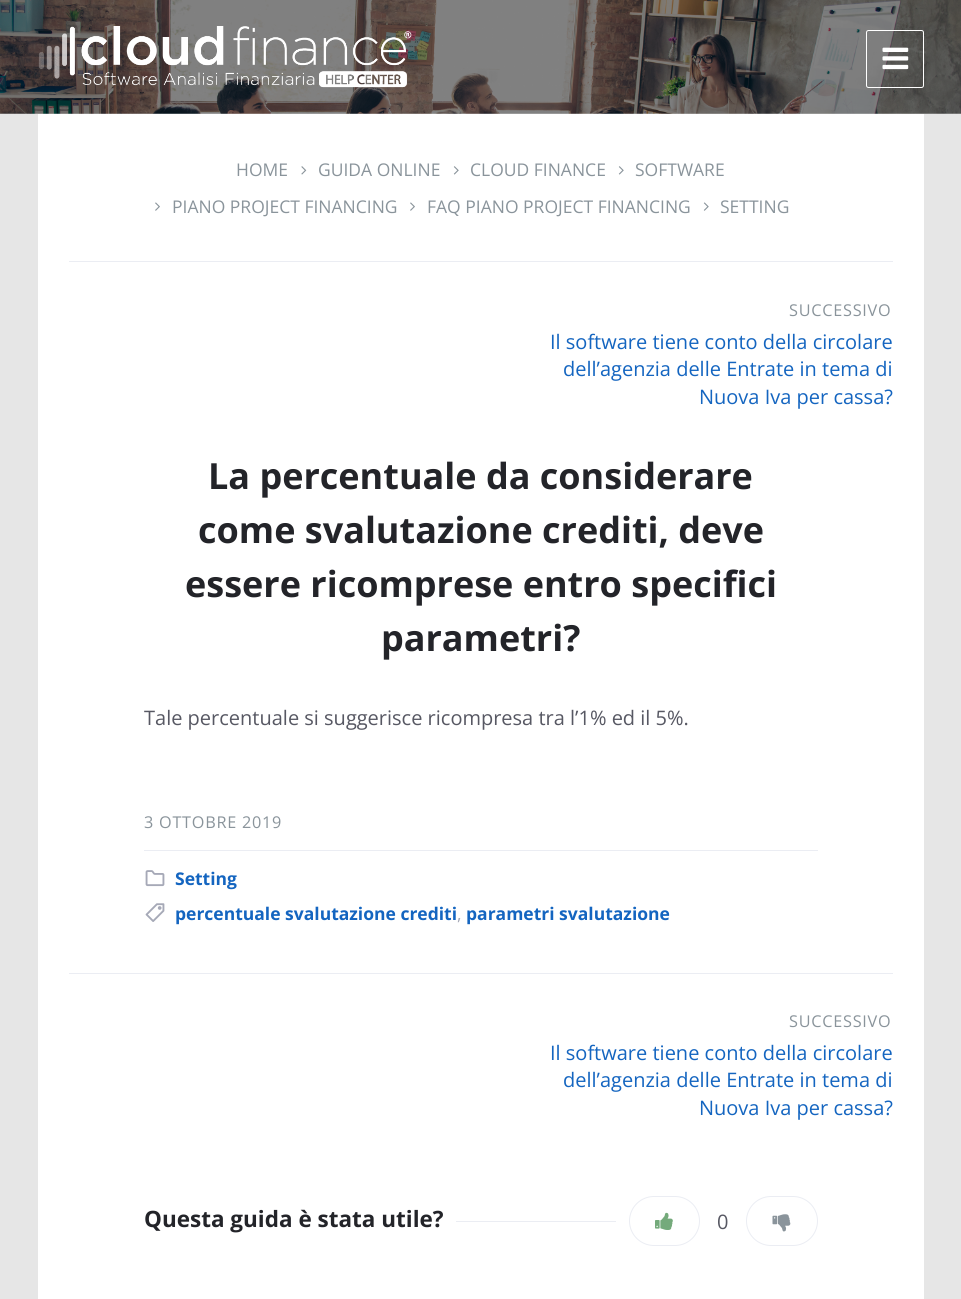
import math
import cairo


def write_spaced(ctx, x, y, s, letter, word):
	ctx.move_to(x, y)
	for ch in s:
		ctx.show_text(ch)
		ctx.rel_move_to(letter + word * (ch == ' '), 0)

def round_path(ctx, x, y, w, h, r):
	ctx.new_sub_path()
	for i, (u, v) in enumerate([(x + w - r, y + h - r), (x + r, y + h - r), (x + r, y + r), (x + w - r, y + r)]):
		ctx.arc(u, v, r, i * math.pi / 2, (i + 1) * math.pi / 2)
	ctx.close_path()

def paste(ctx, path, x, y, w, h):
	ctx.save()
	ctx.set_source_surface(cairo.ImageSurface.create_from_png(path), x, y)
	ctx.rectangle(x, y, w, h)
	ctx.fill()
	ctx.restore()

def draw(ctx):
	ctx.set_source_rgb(0.902, 0.902, 0.902)
	ctx.paint()
	paste(ctx, 'media/1.png', 0, 0, 961, 114)
	paste(ctx, 'media/2.png', 38, 26, 374, 62)
	round_path(ctx, 866.5, 30.5, 57, 57, 2)
	ctx.set_source_rgb(1, 1, 1)
	ctx.set_line_width(1)
	ctx.stroke()
	paste(ctx, 'media/3.png', 882, 47, 27, 23)
	ctx.rectangle(38, 114, 886, 1185)
	ctx.fill()
	ctx.select_font_face('Open Sans')
	ctx.set_font_size(17.5)
	ctx.set_source_rgb(0.541, 0.58, 0.608)
	ctx.move_to(236, 176)
	ctx.show_text('HOME')
	paste(ctx, 'media/4.png', 301, 166, 6, 9)
	ctx.move_to(318, 176)
	ctx.show_text('GUIDA ONLINE')
	paste(ctx, 'media/5.png', 453, 166, 6, 9)
	ctx.move_to(470, 176)
	ctx.show_text('CLOUD FINANCE')
	paste(ctx, 'media/5.png', 618, 166, 6, 9)
	ctx.move_to(635, 176)
	ctx.show_text('SOFTWARE')
	paste(ctx, 'media/6.png', 155, 202, 5, 9)
	ctx.move_to(172, 213)
	ctx.show_text('PIANO PROJECT FINANCING')
	paste(ctx, 'media/6.png', 410, 202, 5, 9)
	ctx.move_to(427, 213)
	ctx.show_text('FAQ PIANO PROJECT FINANCING')
	paste(ctx, 'media/7.png', 703, 202, 6, 9)
	ctx.move_to(720, 213)
	ctx.show_text('SETTING')
	ctx.set_source_rgb(0.918, 0.929, 0.953)
	ctx.rectangle(69, 261, 824, 1)
	ctx.fill()
	ctx.set_font_size(16.25)
	ctx.set_source_rgb(0.541, 0.58, 0.608)
	write_spaced(ctx, 789, 316, 'SUCCESSIVO', 0.75, 0)
	ctx.set_font_size(20)
	ctx.set_source_rgb(0.082, 0.396, 0.753)
	for x, y, s in [
		(550, 349, 'Il software tiene conto della circolare'),
		(563, 376, 'dell’agenzia delle Entrate in tema di'),
		(699, 404, 'Nuova Iva per cassa?'),
	]:
		ctx.move_to(x, y)
		ctx.show_text(s)
	ctx.select_font_face('Open Sans', cairo.FONT_SLANT_NORMAL, cairo.FONT_WEIGHT_BOLD)
	ctx.set_font_size(36)
	ctx.set_source_rgb(0.137, 0.141, 0.161)
	for x, y, s in [
		(208, 489, 'La percentuale da considerare'),
		(198, 543, 'come svalutazione crediti, deve'),
		(185, 597, 'essere ricomprese entro specifici'),
		(381, 651, 'parametri?'),
	]:
		ctx.move_to(x, y)
		ctx.show_text(s)
	ctx.select_font_face('Open Sans')
	ctx.set_font_size(20)
	ctx.set_source_rgb(0.341, 0.345, 0.388)
	ctx.move_to(144, 725)
	ctx.show_text('Tale percentuale si suggerisce ricompresa tra l’1% ed il 5%.')
	ctx.set_font_size(16.25)
	ctx.set_source_rgb(0.541, 0.58, 0.608)
	write_spaced(ctx, 144, 828, '3 OTTOBRE 2019', 0.75, 0)
	ctx.set_source_rgb(0.918, 0.929, 0.953)
	ctx.rectangle(144, 850, 674, 1)
	ctx.fill()
	paste(ctx, 'media/8.png', 145, 870, 20, 17)
	ctx.select_font_face('Open Sans', cairo.FONT_SLANT_NORMAL, cairo.FONT_WEIGHT_BOLD)
	ctx.set_font_size(17.5)
	ctx.set_source_rgb(0.082, 0.396, 0.753)
	ctx.move_to(175, 885)
	ctx.show_text('Setting')
	paste(ctx, 'media/9.png', 145, 903, 20, 19)
	ctx.move_to(175, 920)
	ctx.show_text('percentuale svalutazione crediti')
	ctx.select_font_face('Open Sans')
	ctx.set_source_rgb(0.651, 0.663, 0.718)
	ctx.move_to(457, 920)
	ctx.show_text(',')
	ctx.select_font_face('Open Sans', cairo.FONT_SLANT_NORMAL, cairo.FONT_WEIGHT_BOLD)
	ctx.set_source_rgb(0.082, 0.396, 0.753)
	ctx.move_to(466, 920)
	ctx.show_text('parametri svalutazione')
	ctx.set_source_rgb(0.918, 0.929, 0.953)
	ctx.rectangle(69, 973, 824, 1)
	ctx.fill()
	ctx.select_font_face('Open Sans')
	ctx.set_font_size(16.25)
	ctx.set_source_rgb(0.541, 0.58, 0.608)
	write_spaced(ctx, 789, 1027, 'SUCCESSIVO', 0.75, 0)
	ctx.set_font_size(20)
	ctx.set_source_rgb(0.082, 0.396, 0.753)
	for x, y, s in [
		(550, 1060, 'Il software tiene conto della circolare'),
		(563, 1087, 'dell’agenzia delle Entrate in tema di'),
		(699, 1115, 'Nuova Iva per cassa?'),
	]:
		ctx.move_to(x, y)
		ctx.show_text(s)
	ctx.select_font_face('Open Sans', cairo.FONT_SLANT_NORMAL, cairo.FONT_WEIGHT_BOLD)
	ctx.set_font_size(22.5)
	ctx.set_source_rgb(0.137, 0.141, 0.161)
	ctx.move_to(144, 1227)
	ctx.show_text('Questa guida è stata utile?')
	ctx.set_source_rgb(0.918, 0.929, 0.953)
	ctx.rectangle(456, 1221, 160, 1)
	ctx.fill()
	round_path(ctx, 629.5, 1196.5, 70, 49, 24.5)
	ctx.stroke()
	paste(ctx, 'media/10.png', 655, 1212, 18, 18)
	ctx.select_font_face('Open Sans')
	ctx.set_font_size(20)
	ctx.set_source_rgb(0.341, 0.345, 0.388)
	ctx.move_to(717, 1229)
	ctx.show_text('0')
	round_path(ctx, 746.5, 1196.5, 71, 49, 24.5)
	ctx.set_source_rgb(0.918, 0.929, 0.953)
	ctx.stroke()
	paste(ctx, 'media/11.png', 772, 1214, 19, 18)


surface = cairo.ImageSurface(cairo.FORMAT_RGB24, 961, 1299)
ctx = cairo.Context(surface)
options = cairo.FontOptions()
options.set_hint_metrics(cairo.HINT_METRICS_OFF)
options.set_hint_style(cairo.HINT_STYLE_NONE)
ctx.set_font_options(options)
ctx.set_miter_limit(4)
draw(ctx)
surface.write_to_png('image.png')
